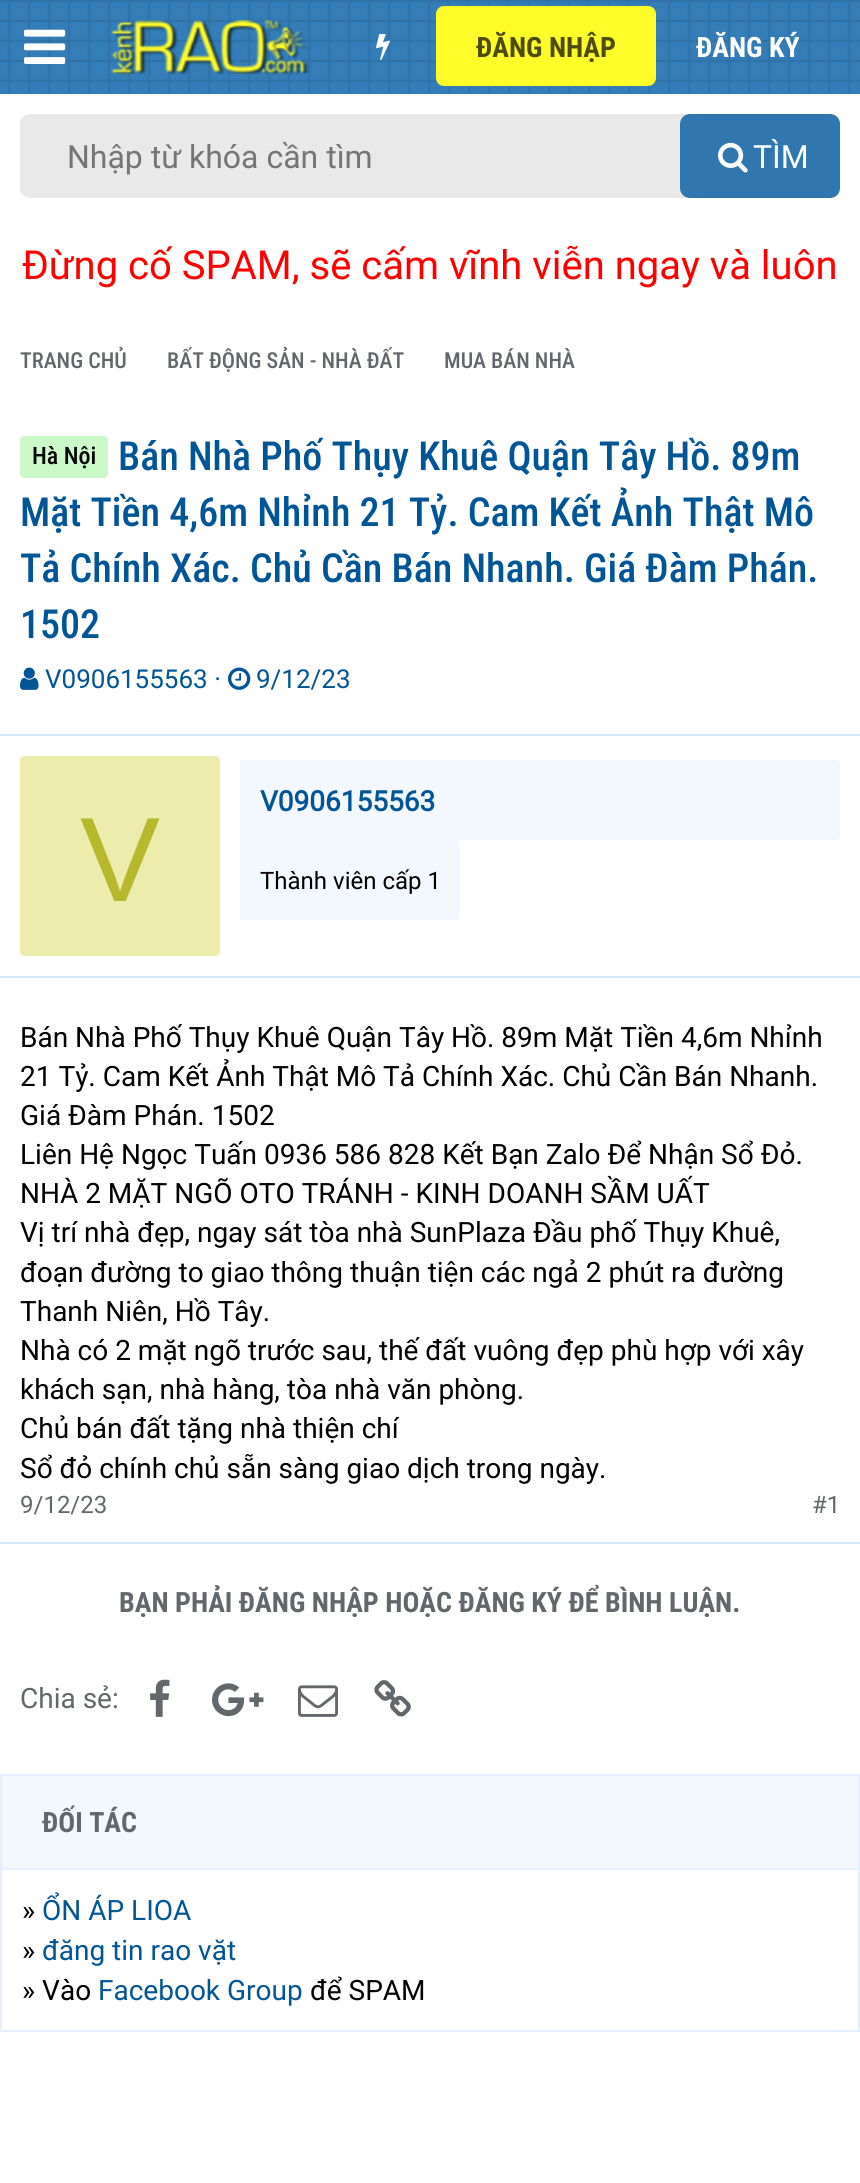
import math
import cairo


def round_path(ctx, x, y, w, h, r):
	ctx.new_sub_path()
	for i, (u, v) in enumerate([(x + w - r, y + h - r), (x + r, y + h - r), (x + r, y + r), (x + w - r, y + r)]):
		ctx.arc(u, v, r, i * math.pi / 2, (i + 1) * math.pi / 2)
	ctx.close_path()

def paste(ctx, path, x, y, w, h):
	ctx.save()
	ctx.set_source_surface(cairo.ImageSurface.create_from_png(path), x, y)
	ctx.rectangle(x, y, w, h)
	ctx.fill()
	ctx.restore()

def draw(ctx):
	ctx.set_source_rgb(1, 1, 1)
	ctx.paint()
	paste(ctx, 'media/1.png', 0, 0, 860, 94)
	paste(ctx, 'media/2.png', 24, 29, 42, 35)
	paste(ctx, 'media/3.png', 111, 20, 198, 54)
	paste(ctx, 'media/4.png', 376, 34, 14, 26)
	ctx.set_source_rgb(1, 0.988, 0.165)
	round_path(ctx, 436, 6, 220, 80, 8)
	ctx.fill()
	ctx.select_font_face('Roboto Condensed', cairo.FONT_SLANT_NORMAL, cairo.FONT_WEIGHT_BOLD)
	ctx.set_font_size(28)
	ctx.set_source_rgb(0.302, 0.298, 0.051)
	ctx.move_to(476, 57)
	ctx.show_text('ĐĂNG NHẬP')
	ctx.set_source_rgb(1, 1, 1)
	ctx.move_to(696, 57)
	ctx.show_text('ĐĂNG KÝ')
	ctx.set_source_rgb(0.914, 0.914, 0.914)
	round_path(ctx, 20, 114, 820, 84, 10)
	ctx.fill()
	ctx.select_font_face('Roboto')
	ctx.set_font_size(32)
	ctx.set_source_rgb(0.459, 0.459, 0.459)
	ctx.move_to(67, 168)
	ctx.show_text('Nhập từ khóa cần tìm')
	ctx.set_source_rgb(0.188, 0.467, 0.686)
	round_path(ctx, 680, 114, 160, 84, 10)
	ctx.fill()
	paste(ctx, 'media/5.png', 718, 142, 30, 31)
	ctx.set_source_rgb(1, 1, 1)
	ctx.move_to(753, 168)
	ctx.show_text('TÌM')
	ctx.set_font_size(40)
	ctx.set_source_rgb(1, 0, 0)
	ctx.move_to(22, 279)
	ctx.show_text('Đừng cố SPAM, sẽ cấm vĩnh viễn ngay và luôn')
	ctx.select_font_face('Roboto Condensed Medium')
	ctx.set_font_size(22)
	ctx.set_source_rgb(0.388, 0.4, 0.416)
	for x, y, s in [
		(20, 368, 'TRANG CHỦ'),
		(167, 368, 'BẤT ĐỘNG SẢN - NHÀ ĐẤT'),
		(444, 368, 'MUA BÁN NHÀ'),
	]:
		ctx.move_to(x, y)
		ctx.show_text(s)
	ctx.set_source_rgb(0.8, 0.976, 0.784)
	round_path(ctx, 20, 436, 88, 42, 4)
	ctx.fill()
	ctx.set_font_size(24)
	ctx.set_source_rgb(0, 0, 0)
	ctx.move_to(32, 464)
	ctx.show_text('Hà Nội')
	ctx.set_font_size(40)
	ctx.set_source_rgb(0, 0.333, 0.588)
	for x, y, s in [
		(118, 470, 'Bán Nhà Phố Thụy Khuê Quận Tây Hồ. 89m'),
		(20, 526, 'Mặt Tiền 4,6m Nhỉnh 21 Tỷ. Cam Kết Ảnh Thật Mô'),
		(20, 582, 'Tả Chính Xác. Chủ Cần Bán Nhanh. Giá Đàm Phán.'),
		(20, 638, '1502'),
	]:
		ctx.move_to(x, y)
		ctx.show_text(s)
	paste(ctx, 'media/6.png', 20, 667, 19, 23)
	ctx.select_font_face('Roboto')
	ctx.set_font_size(26)
	ctx.move_to(45, 688)
	ctx.show_text('V0906155563 ·')
	paste(ctx, 'media/7.png', 228, 667, 23, 23)
	ctx.move_to(256, 688)
	ctx.show_text('9/12/23')
	ctx.set_source_rgb(0.839, 0.91, 0.992)
	ctx.rectangle(0, 734, 860, 2)
	ctx.rectangle(0, 1542, 860, 2)
	ctx.rectangle(0, 976, 860, 2)
	ctx.fill()
	ctx.set_source_rgb(0.922, 0.922, 0.678)
	round_path(ctx, 20, 756, 200, 200, 4)
	ctx.fill()
	ctx.select_font_face('Liberation Sans')
	ctx.set_font_size(120)
	ctx.set_source_rgb(0.722, 0.722, 0.18)
	ctx.move_to(80, 901)
	ctx.show_text('V')
	ctx.set_source_rgb(0.949, 0.969, 0.992)
	round_path(ctx, 240, 760, 600, 80, 4)
	ctx.fill()
	ctx.select_font_face('Roboto', cairo.FONT_SLANT_NORMAL, cairo.FONT_WEIGHT_BOLD)
	ctx.set_font_size(28)
	ctx.set_source_rgb(0, 0.333, 0.588)
	ctx.move_to(260, 811)
	ctx.show_text('V0906155563')
	ctx.set_source_rgb(0.949, 0.969, 0.992)
	round_path(ctx, 240, 840, 220, 80, 4)
	ctx.fill()
	ctx.select_font_face('Roboto')
	ctx.set_font_size(24)
	ctx.set_source_rgb(0, 0, 0)
	ctx.move_to(260, 889)
	ctx.show_text('Thành viên cấp 1')
	ctx.set_font_size(28)
	for x, y, s in [
		(20, 1047, 'Bán Nhà Phố Thụy Khuê Quận Tây Hồ. 89m Mặt Tiền 4,6m Nhỉnh'),
		(20, 1086, '21 Tỷ. Cam Kết Ảnh Thật Mô Tả Chính Xác. Chủ Cần Bán Nhanh.'),
		(20, 1125, 'Giá Đàm Phán. 1502'),
		(20, 1164, 'Liên Hệ Ngọc Tuấn 0936 586 828 Kết Bạn Zalo Để Nhận Sổ Đỏ.'),
		(20, 1203, 'NHÀ 2 MẶT NGÕ OTO TRÁNH - KINH DOANH SẦM UẤT'),
		(20, 1242, 'Vị trí nhà đẹp, ngay sát tòa nhà SunPlaza Đầu phố Thụy Khuê,'),
		(20, 1282, 'đoạn đường to giao thông thuận tiện các ngả 2 phút ra đường'),
		(20, 1321, 'Thanh Niên, Hồ Tây.'),
		(20, 1360, 'Nhà có 2 mặt ngõ trước sau, thế đất vuông đẹp phù hợp với xây'),
		(20, 1399, 'khách sạn, nhà hàng, tòa nhà văn phòng.'),
		(20, 1438, 'Chủ bán đất tặng nhà thiện chí'),
		(20, 1478, 'Sổ đỏ chính chủ sẵn sàng giao dịch trong ngày.'),
	]:
		ctx.move_to(x, y)
		ctx.show_text(s)
	ctx.set_font_size(24)
	ctx.set_source_rgb(0.388, 0.4, 0.416)
	ctx.move_to(20, 1513)
	ctx.show_text('9/12/23')
	ctx.move_to(812, 1513)
	ctx.show_text('#1')
	ctx.select_font_face('Roboto Condensed', cairo.FONT_SLANT_NORMAL, cairo.FONT_WEIGHT_BOLD)
	ctx.set_font_size(28)
	ctx.move_to(119, 1612)
	ctx.show_text('BẠN PHẢI ĐĂNG NHẬP HOẶC ĐĂNG KÝ ĐỂ BÌNH LUẬN.')
	ctx.select_font_face('Roboto')
	ctx.move_to(20, 1708)
	ctx.show_text('Chia sẻ:')
	paste(ctx, 'media/8.png', 150, 1679, 20, 38)
	paste(ctx, 'media/9.png', 212, 1683, 52, 34)
	paste(ctx, 'media/10.png', 298, 1685, 40, 32)
	paste(ctx, 'media/11.png', 374, 1680, 37, 37)
	ctx.rectangle(1, 1775, 858, 256)
	ctx.set_source_rgb(0.898, 0.941, 0.996)
	ctx.stroke()
	ctx.set_source_rgb(0.949, 0.969, 0.992)
	ctx.rectangle(2, 1776, 856, 92)
	ctx.fill()
	ctx.set_source_rgb(0.898, 0.941, 0.996)
	ctx.rectangle(2, 1868, 856, 2)
	ctx.fill()
	ctx.select_font_face('Roboto Condensed', cairo.FONT_SLANT_NORMAL, cairo.FONT_WEIGHT_BOLD)
	ctx.set_source_rgb(0.388, 0.4, 0.416)
	ctx.move_to(42, 1832)
	ctx.show_text('ĐỐI TÁC')
	ctx.select_font_face('Roboto')
	ctx.set_source_rgb(0, 0, 0)
	ctx.move_to(22, 1920)
	ctx.show_text('»')
	ctx.set_source_rgb(0, 0.333, 0.588)
	ctx.move_to(42, 1920)
	ctx.show_text('ỔN ÁP LIOA')
	ctx.set_source_rgb(0, 0, 0)
	ctx.move_to(22, 1960)
	ctx.show_text('»')
	ctx.set_source_rgb(0, 0.333, 0.588)
	ctx.move_to(42, 1960)
	ctx.show_text('đăng tin rao vặt')
	ctx.set_source_rgb(0, 0, 0)
	ctx.move_to(22, 2000)
	ctx.show_text('» Vào')
	ctx.set_source_rgb(0, 0.333, 0.588)
	ctx.move_to(98, 2000)
	ctx.show_text('Facebook Group')
	ctx.set_source_rgb(0, 0, 0)
	ctx.move_to(310, 2000)
	ctx.show_text('để SPAM')


surface = cairo.ImageSurface(cairo.FORMAT_RGB24, 860, 2183)
ctx = cairo.Context(surface)
options = cairo.FontOptions()
options.set_hint_metrics(cairo.HINT_METRICS_OFF)
options.set_hint_style(cairo.HINT_STYLE_NONE)
ctx.set_font_options(options)
ctx.set_miter_limit(4)
draw(ctx)
surface.write_to_png('image.png')
